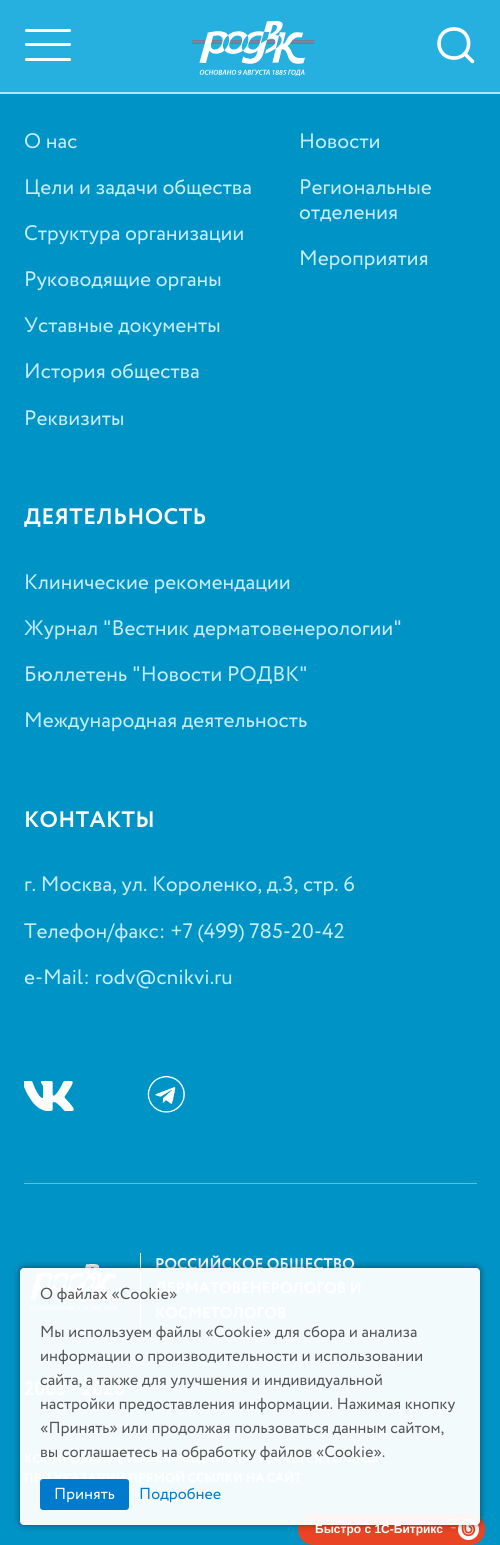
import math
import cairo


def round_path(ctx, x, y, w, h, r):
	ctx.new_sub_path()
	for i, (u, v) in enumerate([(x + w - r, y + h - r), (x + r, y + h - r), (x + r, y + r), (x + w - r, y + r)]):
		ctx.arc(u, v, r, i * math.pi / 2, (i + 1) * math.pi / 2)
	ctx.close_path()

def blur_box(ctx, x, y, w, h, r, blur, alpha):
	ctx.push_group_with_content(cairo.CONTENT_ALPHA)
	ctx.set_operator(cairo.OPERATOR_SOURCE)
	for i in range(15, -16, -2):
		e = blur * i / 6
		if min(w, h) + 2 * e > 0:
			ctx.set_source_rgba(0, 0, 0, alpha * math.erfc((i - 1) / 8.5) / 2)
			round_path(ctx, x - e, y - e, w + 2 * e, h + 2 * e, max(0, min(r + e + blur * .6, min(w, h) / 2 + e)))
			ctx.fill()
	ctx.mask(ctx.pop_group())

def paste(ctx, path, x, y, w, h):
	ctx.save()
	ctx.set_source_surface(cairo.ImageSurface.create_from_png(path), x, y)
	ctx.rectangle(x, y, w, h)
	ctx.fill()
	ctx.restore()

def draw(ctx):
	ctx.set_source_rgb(0, 0.58, 0.776)
	ctx.paint()
	ctx.set_source_rgb(0.145, 0.69, 0.878)
	ctx.rectangle(0, 0, 500, 92)
	ctx.fill()
	ctx.set_source_rgb(1, 1, 1)
	ctx.new_path()
	ctx.move_to(26.5, 29)
	ctx.line_to(48, 29)
	ctx.line_to(48, 32)
	ctx.line_to(26.5, 32)
	ctx.curve_to(25.5, 32, 25, 31.5, 25, 30.5)
	ctx.curve_to(25, 29.5, 25.5, 29, 26.5, 29)
	ctx.close_path()
	ctx.fill()
	ctx.new_path()
	ctx.move_to(48, 29)
	ctx.line_to(69.5, 29)
	ctx.curve_to(70.5, 29, 71, 29.5, 71, 30.5)
	ctx.curve_to(71, 31.5, 70.5, 32, 69.5, 32)
	ctx.line_to(48, 32)
	ctx.close_path()
	ctx.fill()
	ctx.new_path()
	ctx.move_to(26.5, 43)
	ctx.line_to(48, 43)
	ctx.line_to(48, 46)
	ctx.line_to(26.5, 46)
	ctx.curve_to(25.5, 46, 25, 45.5, 25, 44.5)
	ctx.curve_to(25, 43.5, 25.5, 43, 26.5, 43)
	ctx.close_path()
	ctx.fill()
	ctx.new_path()
	ctx.move_to(48, 43)
	ctx.line_to(69.5, 43)
	ctx.curve_to(70.5, 43, 71, 43.5, 71, 44.5)
	ctx.curve_to(71, 45.5, 70.5, 46, 69.5, 46)
	ctx.line_to(48, 46)
	ctx.close_path()
	ctx.fill()
	ctx.new_path()
	ctx.move_to(26.5, 58)
	ctx.line_to(48, 58)
	ctx.line_to(48, 61)
	ctx.line_to(26.5, 61)
	ctx.curve_to(25.5, 61, 25, 60.5, 25, 59.5)
	ctx.curve_to(25, 58.5, 25.5, 58, 26.5, 58)
	ctx.close_path()
	ctx.fill()
	ctx.new_path()
	ctx.move_to(48, 58)
	ctx.line_to(69.5, 58)
	ctx.curve_to(70.5, 58, 71, 58.5, 71, 59.5)
	ctx.curve_to(71, 60.5, 70.5, 61, 69.5, 61)
	ctx.line_to(48, 61)
	ctx.close_path()
	ctx.fill()
	paste(ctx, 'media/1.png', 192, 21, 123, 55)
	ctx.new_path()
	ctx.move_to(454, 58)
	ctx.curve_to(473.5, 58, 473.5, 29, 454, 29)
	ctx.curve_to(434, 29, 434, 58, 454, 58)
	ctx.close_path()
	ctx.move_to(472.5, 61.5)
	ctx.line_to(464.5, 53.5)
	ctx.set_line_width(3.6)
	ctx.set_line_cap(cairo.LINE_CAP_ROUND)
	ctx.set_line_join(cairo.LINE_JOIN_ROUND)
	ctx.stroke()
	ctx.set_source_rgb(0.69, 0.898, 1)
	ctx.rectangle(0, 92, 500, 2)
	ctx.fill()
	ctx.set_source_rgb(0.384, 0.741, 0.867)
	ctx.rectangle(24, 1183, 453, 1)
	ctx.fill()
	paste(ctx, 'media/2.png', 25, 133, 52, 16)
	paste(ctx, 'media/3.png', 26, 179, 225, 18)
	paste(ctx, 'media/4.png', 25, 225, 218, 20)
	paste(ctx, 'media/5.png', 26, 271, 195, 20)
	paste(ctx, 'media/6.png', 24, 317, 196, 20)
	paste(ctx, 'media/7.png', 26, 363, 173, 20)
	paste(ctx, 'media/8.png', 26, 410, 97, 16)
	paste(ctx, 'media/9.png', 301, 133, 78, 16)
	paste(ctx, 'media/10.png', 301, 179, 130, 16)
	paste(ctx, 'media/11.png', 299, 209, 98, 13)
	paste(ctx, 'media/12.png', 301, 250, 127, 20)
	paste(ctx, 'media/13.png', 24, 508, 182, 19)
	paste(ctx, 'media/14.png', 26, 574, 264, 20)
	paste(ctx, 'media/15.png', 24, 620, 377, 20)
	paste(ctx, 'media/16.png', 26, 666, 280, 18)
	paste(ctx, 'media/17.png', 26, 712, 281, 20)
	paste(ctx, 'media/18.png', 26, 811, 127, 17)
	paste(ctx, 'media/19.png', 25, 876, 329, 20)
	paste(ctx, 'media/20.png', 24, 923, 320, 20)
	paste(ctx, 'media/21.png', 24, 969, 208, 20)
	paste(ctx, 'media/22.png', 24, 1081, 50, 30)
	paste(ctx, 'media/23.png', 147, 1075, 38, 38)
	paste(ctx, 'media/24.png', 24, 1264, 102, 47)
	ctx.set_source_rgb(1, 1, 1)
	ctx.rectangle(140, 1253, 1, 73)
	ctx.fill()
	paste(ctx, 'media/25.png', 156, 1255, 199, 16)
	paste(ctx, 'media/26.png', 155, 1282, 206, 13)
	paste(ctx, 'media/27.png', 156, 1307, 130, 12)
	paste(ctx, 'media/28.png', 24, 1381, 100, 15)
	paste(ctx, 'media/29.png', 25, 1454, 353, 11)
	paste(ctx, 'media/30.png', 25, 1471, 277, 12)
	ctx.set_source_rgb(0.914, 0.271, 0.141)
	round_path(ctx, 298, 1514, 187, 31, 15)
	ctx.fill()
	paste(ctx, 'media/40.png', 443, 1519, 36, 21)
	ctx.save()
	ctx.set_fill_rule(cairo.FILL_RULE_EVEN_ODD)
	ctx.new_path()
	ctx.move_to(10, 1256)
	ctx.line_to(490, 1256)
	ctx.line_to(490, 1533)
	ctx.line_to(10, 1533)
	ctx.close_path()
	ctx.move_to(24, 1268)
	ctx.line_to(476, 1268)
	ctx.curve_to(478, 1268, 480, 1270, 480, 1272)
	ctx.line_to(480, 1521)
	ctx.curve_to(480, 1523, 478, 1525, 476, 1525)
	ctx.line_to(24, 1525)
	ctx.curve_to(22, 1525, 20, 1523, 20, 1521)
	ctx.line_to(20, 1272)
	ctx.curve_to(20, 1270, 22, 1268, 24, 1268)
	ctx.close_path()
	ctx.clip()
	ctx.set_source_rgb(0, 0, 0)
	blur_box(ctx, 20, 1266, 460, 257, 4, 3, 0.1)
	ctx.restore()
	ctx.save()
	ctx.set_fill_rule(cairo.FILL_RULE_EVEN_ODD)
	ctx.new_path()
	ctx.move_to(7, 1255)
	ctx.line_to(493, 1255)
	ctx.line_to(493, 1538)
	ctx.line_to(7, 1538)
	ctx.close_path()
	ctx.move_to(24, 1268)
	ctx.line_to(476, 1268)
	ctx.curve_to(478, 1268, 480, 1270, 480, 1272)
	ctx.line_to(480, 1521)
	ctx.curve_to(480, 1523, 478, 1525, 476, 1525)
	ctx.line_to(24, 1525)
	ctx.curve_to(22, 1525, 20, 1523, 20, 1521)
	ctx.line_to(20, 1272)
	ctx.curve_to(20, 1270, 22, 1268, 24, 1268)
	ctx.close_path()
	ctx.clip()
	ctx.set_source_rgb(0, 0, 0)
	blur_box(ctx, 20, 1268, 460, 257, 4, 4, 0.4)
	ctx.restore()
	ctx.select_font_face('Liberation Sans', cairo.FONT_SLANT_NORMAL, cairo.FONT_WEIGHT_BOLD)
	ctx.set_font_size(12)
	ctx.set_source_rgb(1, 1, 1)
	ctx.move_to(315, 1533)
	ctx.show_text('Быстро с 1С-Битрикс')
	ctx.set_source_rgba(1, 1, 1, 0.95)
	round_path(ctx, 20, 1268, 460, 257, 4)
	ctx.fill()
	paste(ctx, 'media/31.png', 40, 1287, 137, 16)
	paste(ctx, 'media/32.png', 41, 1325, 376, 16)
	paste(ctx, 'media/33.png', 41, 1349, 382, 16)
	paste(ctx, 'media/34.png', 40, 1374, 342, 15)
	paste(ctx, 'media/35.png', 41, 1397, 414, 16)
	paste(ctx, 'media/36.png', 40, 1421, 404, 16)
	paste(ctx, 'media/37.png', 41, 1445, 344, 16)
	ctx.set_source_rgb(0, 0.478, 0.8)
	round_path(ctx, 40, 1479, 89, 31, 3)
	ctx.fill()
	paste(ctx, 'media/38.png', 55, 1487, 60, 16)
	paste(ctx, 'media/39.png', 140, 1487, 81, 16)


surface = cairo.ImageSurface(cairo.FORMAT_RGB24, 500, 1545)
ctx = cairo.Context(surface)
options = cairo.FontOptions()
options.set_hint_metrics(cairo.HINT_METRICS_OFF)
options.set_hint_style(cairo.HINT_STYLE_NONE)
ctx.set_font_options(options)
ctx.set_miter_limit(4)
draw(ctx)
surface.write_to_png('image.png')
